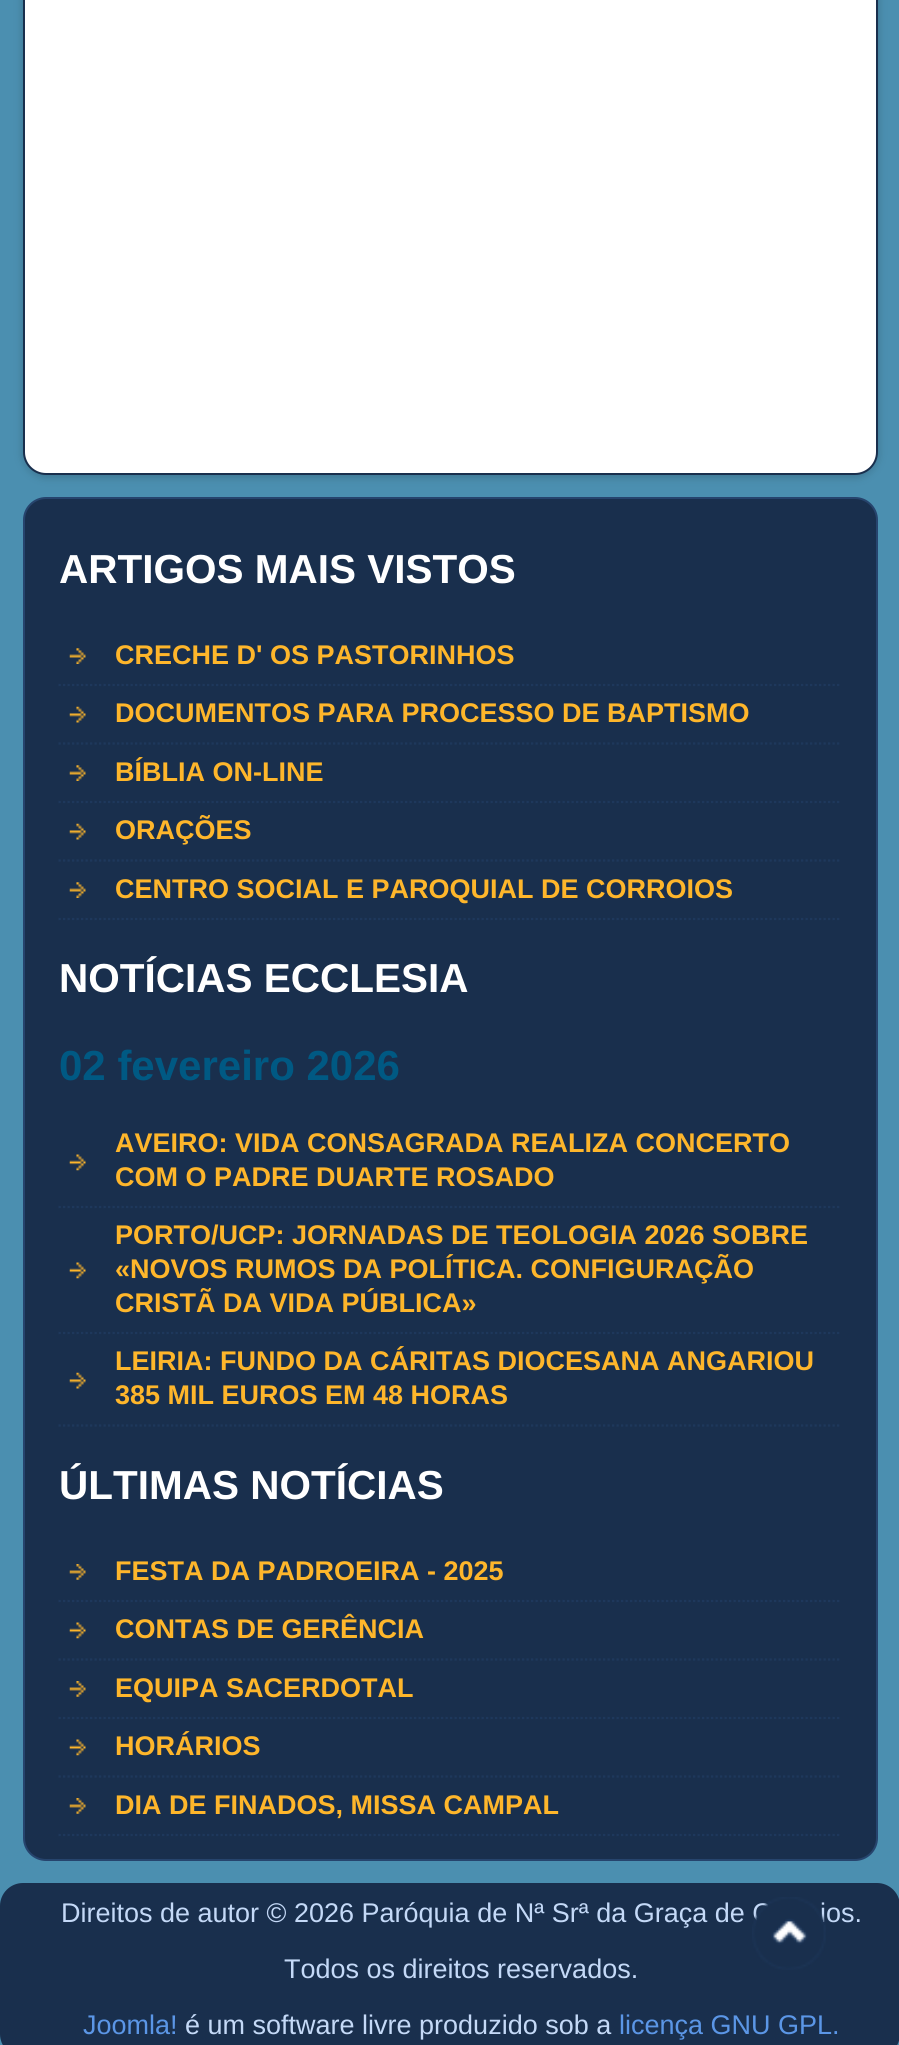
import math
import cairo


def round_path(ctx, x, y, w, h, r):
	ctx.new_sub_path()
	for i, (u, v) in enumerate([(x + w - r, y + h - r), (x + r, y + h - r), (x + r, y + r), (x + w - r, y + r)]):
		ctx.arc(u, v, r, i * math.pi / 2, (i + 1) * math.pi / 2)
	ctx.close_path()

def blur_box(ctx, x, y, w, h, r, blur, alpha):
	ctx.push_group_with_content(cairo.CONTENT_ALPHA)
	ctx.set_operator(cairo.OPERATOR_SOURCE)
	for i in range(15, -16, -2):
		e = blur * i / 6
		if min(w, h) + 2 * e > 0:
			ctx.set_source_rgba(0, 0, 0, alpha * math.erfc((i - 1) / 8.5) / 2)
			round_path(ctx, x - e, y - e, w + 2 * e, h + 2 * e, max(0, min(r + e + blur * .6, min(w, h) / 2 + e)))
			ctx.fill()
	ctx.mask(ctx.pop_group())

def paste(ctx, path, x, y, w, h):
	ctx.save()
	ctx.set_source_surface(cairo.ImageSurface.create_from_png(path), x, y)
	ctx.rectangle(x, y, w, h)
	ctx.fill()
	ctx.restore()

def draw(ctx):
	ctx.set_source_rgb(0.294, 0.561, 0.69)
	ctx.paint()
	ctx.set_source_rgb(0, 0, 0)
	blur_box(ctx, 23, -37, 855, 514, 23, 4.5, 0.2)
	ctx.set_source_rgb(1, 1, 1)
	round_path(ctx, 24, -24, 853, 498, 22)
	ctx.fill_preserve()
	ctx.set_source_rgb(0.098, 0.184, 0.302)
	ctx.stroke()
	round_path(ctx, 24, 498, 853, 1362, 22)
	ctx.fill_preserve()
	ctx.set_source_rgb(0.149, 0.267, 0.427)
	ctx.stroke()
	ctx.select_font_face('Liberation Sans', cairo.FONT_SLANT_NORMAL, cairo.FONT_WEIGHT_BOLD)
	ctx.set_font_size(40.5)
	ctx.set_source_rgb(1, 1, 1)
	ctx.move_to(59, 583)
	ctx.show_text('ARTIGOS MAIS VISTOS')
	ctx.new_path()
	ctx.move_to(58.5, 685)
	ctx.line_to(841.5, 685)
	ctx.set_source_rgb(0.118, 0.22, 0.361)
	ctx.set_line_width(2.2)
	ctx.set_dash([2.25, 2.25])
	ctx.stroke()
	paste(ctx, 'media/1.png', 69, 648, 17, 16)
	ctx.set_font_size(27)
	ctx.set_source_rgb(0.996, 0.714, 0.169)
	ctx.move_to(115, 664)
	ctx.show_text('CRECHE D\' OS PASTORINHOS')
	ctx.new_path()
	ctx.move_to(58.5, 743.5)
	ctx.line_to(841.5, 743.5)
	ctx.set_source_rgb(0.118, 0.22, 0.361)
	ctx.stroke()
	paste(ctx, 'media/2.png', 69, 706, 17, 17)
	ctx.set_source_rgb(0.996, 0.714, 0.169)
	ctx.move_to(115, 722)
	ctx.show_text('DOCUMENTOS PARA PROCESSO DE BAPTISMO')
	ctx.new_path()
	ctx.move_to(58.5, 802)
	ctx.line_to(841.5, 802)
	ctx.set_source_rgb(0.118, 0.22, 0.361)
	ctx.stroke()
	paste(ctx, 'media/1.png', 69, 765, 17, 16)
	ctx.set_source_rgb(0.996, 0.714, 0.169)
	ctx.move_to(115, 781)
	ctx.show_text('BÍBLIA ON-LINE')
	ctx.new_path()
	ctx.move_to(58.5, 860.5)
	ctx.line_to(841.5, 860.5)
	ctx.set_source_rgb(0.118, 0.22, 0.361)
	ctx.stroke()
	paste(ctx, 'media/2.png', 69, 823, 17, 17)
	ctx.set_source_rgb(0.996, 0.714, 0.169)
	ctx.move_to(115, 839)
	ctx.show_text('ORAÇÕES')
	ctx.new_path()
	ctx.move_to(58.5, 919)
	ctx.line_to(841.5, 919)
	ctx.set_source_rgb(0.118, 0.22, 0.361)
	ctx.stroke()
	paste(ctx, 'media/1.png', 69, 882, 17, 16)
	ctx.set_source_rgb(0.996, 0.714, 0.169)
	ctx.move_to(115, 898)
	ctx.show_text('CENTRO SOCIAL E PAROQUIAL DE CORROIOS')
	ctx.set_font_size(40.5)
	ctx.set_source_rgb(1, 1, 1)
	ctx.move_to(59, 992)
	ctx.show_text('NOTÍCIAS ECCLESIA')
	ctx.set_font_size(42)
	ctx.set_source_rgb(0, 0.349, 0.514)
	ctx.move_to(59, 1080)
	ctx.show_text('02 fevereiro 2026')
	ctx.new_path()
	ctx.move_to(58.5, 1207)
	ctx.line_to(841.5, 1207)
	ctx.set_source_rgb(0.118, 0.22, 0.361)
	ctx.stroke()
	paste(ctx, 'media/3.png', 69, 1154, 17, 17)
	ctx.set_font_size(27)
	ctx.set_source_rgb(0.996, 0.714, 0.169)
	ctx.move_to(115, 1152)
	ctx.show_text('AVEIRO: VIDA CONSAGRADA REALIZA CONCERTO')
	ctx.move_to(115, 1186)
	ctx.show_text('COM O PADRE DUARTE ROSADO')
	ctx.new_path()
	ctx.move_to(58.5, 1333)
	ctx.line_to(841.5, 1333)
	ctx.set_source_rgb(0.118, 0.22, 0.361)
	ctx.stroke()
	paste(ctx, 'media/4.png', 69, 1262, 17, 17)
	ctx.set_source_rgb(0.996, 0.714, 0.169)
	for x, y, s in [
		(115, 1244, 'PORTO/UCP: JORNADAS DE TEOLOGIA 2026 SOBRE'),
		(115, 1278, '«NOVOS RUMOS DA POLÍTICA. CONFIGURAÇÃO'),
		(115, 1312, 'CRISTÃ DA VIDA PÚBLICA»'),
	]:
		ctx.move_to(x, y)
		ctx.show_text(s)
	ctx.new_path()
	ctx.move_to(58.5, 1425.5)
	ctx.line_to(841.5, 1425.5)
	ctx.set_source_rgb(0.118, 0.22, 0.361)
	ctx.stroke()
	paste(ctx, 'media/2.png', 69, 1372, 17, 17)
	ctx.set_source_rgb(0.996, 0.714, 0.169)
	ctx.move_to(115, 1370)
	ctx.show_text('LEIRIA: FUNDO DA CÁRITAS DIOCESANA ANGARIOU')
	ctx.move_to(115, 1404)
	ctx.show_text('385 MIL EUROS EM 48 HORAS')
	ctx.set_font_size(40.5)
	ctx.set_source_rgb(1, 1, 1)
	ctx.move_to(59, 1499)
	ctx.show_text('ÚLTIMAS NOTÍCIAS')
	ctx.new_path()
	ctx.move_to(58.5, 1601)
	ctx.line_to(841.5, 1601)
	ctx.set_source_rgb(0.118, 0.22, 0.361)
	ctx.stroke()
	paste(ctx, 'media/5.png', 69, 1564, 17, 16)
	ctx.set_font_size(27)
	ctx.set_source_rgb(0.996, 0.714, 0.169)
	ctx.move_to(115, 1580)
	ctx.show_text('FESTA DA PADROEIRA - 2025')
	ctx.new_path()
	ctx.move_to(58.5, 1659.5)
	ctx.line_to(841.5, 1659.5)
	ctx.set_source_rgb(0.118, 0.22, 0.361)
	ctx.stroke()
	paste(ctx, 'media/3.png', 69, 1622, 17, 17)
	ctx.set_source_rgb(0.996, 0.714, 0.169)
	ctx.move_to(115, 1638)
	ctx.show_text('CONTAS DE GERÊNCIA')
	ctx.new_path()
	ctx.move_to(58.5, 1718)
	ctx.line_to(841.5, 1718)
	ctx.set_source_rgb(0.118, 0.22, 0.361)
	ctx.stroke()
	paste(ctx, 'media/5.png', 69, 1681, 17, 16)
	ctx.set_source_rgb(0.996, 0.714, 0.169)
	ctx.move_to(115, 1697)
	ctx.show_text('EQUIPA SACERDOTAL')
	ctx.new_path()
	ctx.move_to(58.5, 1776.5)
	ctx.line_to(841.5, 1776.5)
	ctx.set_source_rgb(0.118, 0.22, 0.361)
	ctx.stroke()
	paste(ctx, 'media/3.png', 69, 1739, 17, 17)
	ctx.set_source_rgb(0.996, 0.714, 0.169)
	ctx.move_to(115, 1755)
	ctx.show_text('HORÁRIOS')
	ctx.new_path()
	ctx.move_to(58.5, 1835)
	ctx.line_to(841.5, 1835)
	ctx.set_source_rgb(0.118, 0.22, 0.361)
	ctx.stroke()
	paste(ctx, 'media/5.png', 69, 1798, 17, 16)
	ctx.set_source_rgb(0.996, 0.714, 0.169)
	ctx.move_to(115, 1814)
	ctx.show_text('DIA DE FINADOS, MISSA CAMPAL')
	ctx.set_source_rgb(0.098, 0.184, 0.302)
	round_path(ctx, 1, 1884, 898, 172, 22)
	ctx.fill_preserve()
	ctx.set_line_width(2)
	ctx.set_dash([])
	ctx.stroke()
	ctx.select_font_face('Liberation Sans')
	ctx.set_source_rgb(0.769, 0.851, 0.965)
	ctx.move_to(61, 1922)
	ctx.show_text('Direitos de autor © 2026 Paróquia de Nª Srª da Graça de C')
	ctx.move_to(820, 1922)
	ctx.show_text('ios.')
	paste(ctx, 'media/6.png', 752, 1897, 74, 73)
	ctx.move_to(284, 1978)
	ctx.show_text('Todos os direitos reservados.')
	ctx.set_source_rgb(0.357, 0.588, 0.902)
	ctx.move_to(83, 2034)
	ctx.show_text('Joomla!')
	ctx.set_source_rgb(0.769, 0.851, 0.965)
	ctx.move_to(185, 2034)
	ctx.show_text('é um software livre produzido sob a')
	ctx.set_source_rgb(0.357, 0.588, 0.902)
	ctx.move_to(619, 2034)
	ctx.show_text('licença GNU GPL.')


surface = cairo.ImageSurface(cairo.FORMAT_RGB24, 899, 2045)
ctx = cairo.Context(surface)
options = cairo.FontOptions()
options.set_hint_metrics(cairo.HINT_METRICS_OFF)
options.set_hint_style(cairo.HINT_STYLE_NONE)
ctx.set_font_options(options)
ctx.set_miter_limit(4)
draw(ctx)
surface.write_to_png('image.png')
